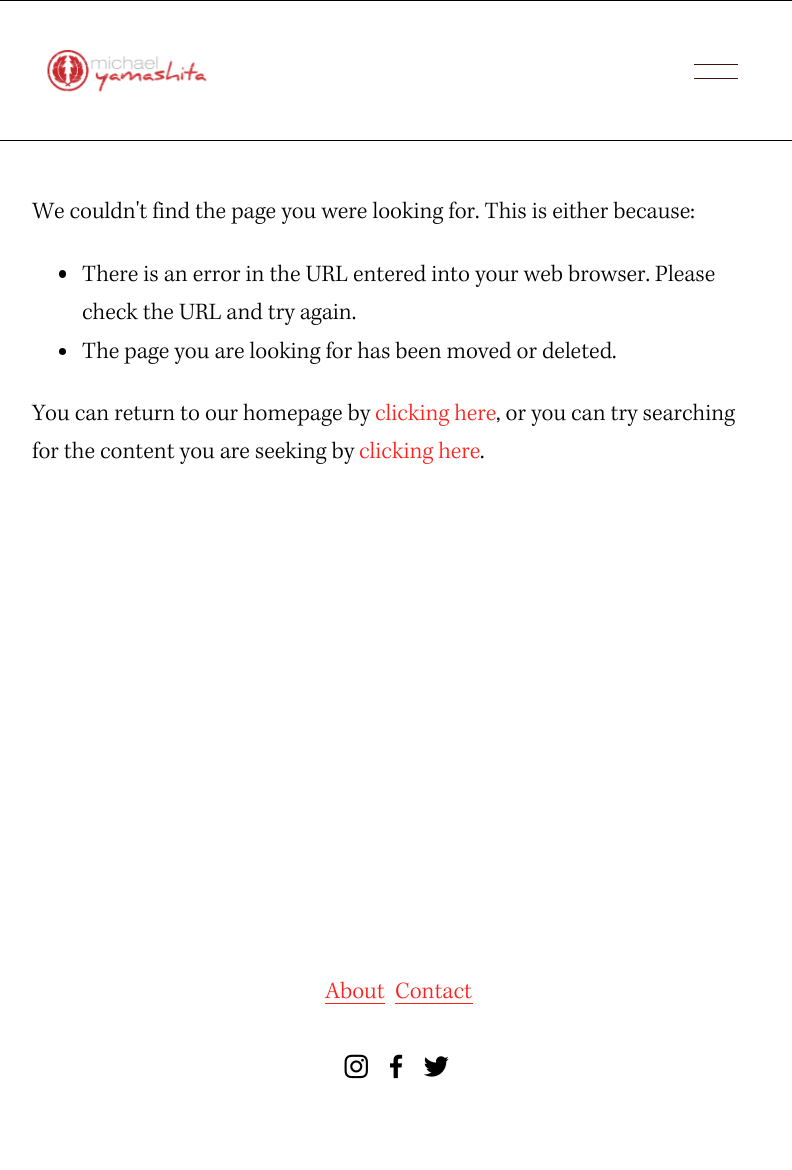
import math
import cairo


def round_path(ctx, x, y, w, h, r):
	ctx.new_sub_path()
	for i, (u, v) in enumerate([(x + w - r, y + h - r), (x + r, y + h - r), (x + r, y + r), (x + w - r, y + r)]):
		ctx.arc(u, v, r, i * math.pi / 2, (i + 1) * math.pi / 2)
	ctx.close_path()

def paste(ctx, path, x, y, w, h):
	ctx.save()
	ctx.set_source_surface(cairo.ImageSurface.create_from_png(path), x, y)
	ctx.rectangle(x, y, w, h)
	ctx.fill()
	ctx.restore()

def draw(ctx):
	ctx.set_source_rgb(1, 1, 1)
	ctx.paint()
	ctx.set_source_rgb(0, 0, 0)
	ctx.rectangle(0, 0, 792, 1)
	ctx.fill()
	ctx.rectangle(0, 140, 792, 1)
	ctx.fill()
	paste(ctx, 'media/1.png', 47, 50, 160, 42)
	ctx.set_source_rgb(0.251, 0.078, 0.059)
	ctx.rectangle(694, 64, 44, 1)
	ctx.fill()
	ctx.rectangle(694, 78, 44, 1)
	ctx.fill()
	ctx.select_font_face('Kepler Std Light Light')
	ctx.set_font_size(24.05)
	ctx.set_source_rgb(0, 0, 0)
	ctx.move_to(32, 218)
	ctx.show_text('We couldn\'t find the page you were looking for. This is either because:')
	round_path(ctx, 59, 270, 7, 8, 3.5)
	ctx.fill()
	ctx.move_to(82, 281)
	ctx.show_text('There is an error in the URL entered into your web browser. Please')
	ctx.move_to(82, 319)
	ctx.show_text('check the URL and try again.')
	ctx.new_path()
	ctx.arc(62.5, 351.5, 3.5, 0, 2 * math.pi)
	ctx.fill()
	ctx.move_to(82, 358)
	ctx.show_text('The page you are looking for has been moved or deleted.')
	ctx.move_to(32, 420)
	ctx.show_text('You can return to our homepage by')
	ctx.set_source_rgb(0.988, 0.133, 0.11)
	ctx.move_to(375, 420)
	ctx.show_text('clicking here')
	ctx.set_source_rgb(0, 0, 0)
	ctx.move_to(496, 420)
	ctx.show_text(', or you can try searching')
	ctx.move_to(32, 458)
	ctx.show_text('for the content you are seeking by')
	ctx.set_source_rgb(0.988, 0.133, 0.11)
	ctx.move_to(359, 458)
	ctx.show_text('clicking here')
	ctx.set_source_rgb(0, 0, 0)
	ctx.move_to(480, 458)
	ctx.show_text('.')
	ctx.set_source_rgb(0.988, 0.133, 0.11)
	ctx.move_to(325, 998)
	ctx.show_text('About')
	ctx.rectangle(325, 1003, 60, 1)
	ctx.fill()
	ctx.move_to(395, 998)
	ctx.show_text('Contact')
	ctx.rectangle(395, 1003, 78, 1)
	ctx.fill()
	paste(ctx, 'media/2.png', 344, 1054, 24, 25)
	paste(ctx, 'media/3.png', 390, 1054, 13, 25)
	paste(ctx, 'media/4.png', 424, 1056, 25, 21)


surface = cairo.ImageSurface(cairo.FORMAT_RGB24, 792, 1170)
ctx = cairo.Context(surface)
options = cairo.FontOptions()
options.set_hint_metrics(cairo.HINT_METRICS_OFF)
options.set_hint_style(cairo.HINT_STYLE_NONE)
ctx.set_font_options(options)
ctx.set_miter_limit(4)
draw(ctx)
surface.write_to_png('image.png')
